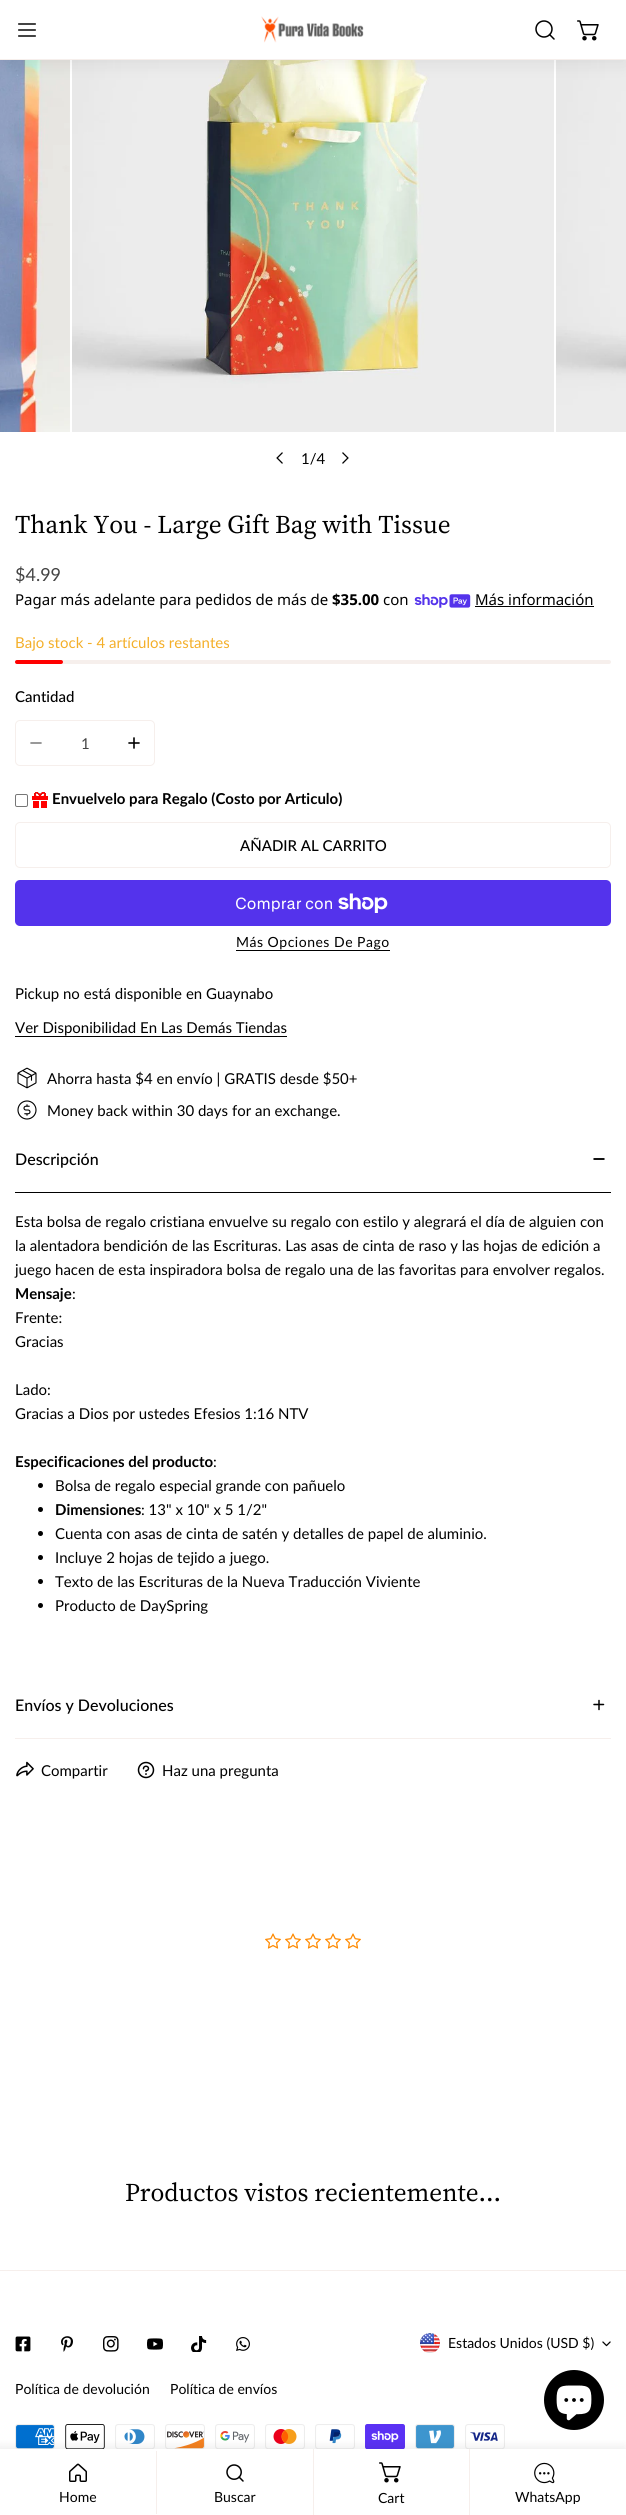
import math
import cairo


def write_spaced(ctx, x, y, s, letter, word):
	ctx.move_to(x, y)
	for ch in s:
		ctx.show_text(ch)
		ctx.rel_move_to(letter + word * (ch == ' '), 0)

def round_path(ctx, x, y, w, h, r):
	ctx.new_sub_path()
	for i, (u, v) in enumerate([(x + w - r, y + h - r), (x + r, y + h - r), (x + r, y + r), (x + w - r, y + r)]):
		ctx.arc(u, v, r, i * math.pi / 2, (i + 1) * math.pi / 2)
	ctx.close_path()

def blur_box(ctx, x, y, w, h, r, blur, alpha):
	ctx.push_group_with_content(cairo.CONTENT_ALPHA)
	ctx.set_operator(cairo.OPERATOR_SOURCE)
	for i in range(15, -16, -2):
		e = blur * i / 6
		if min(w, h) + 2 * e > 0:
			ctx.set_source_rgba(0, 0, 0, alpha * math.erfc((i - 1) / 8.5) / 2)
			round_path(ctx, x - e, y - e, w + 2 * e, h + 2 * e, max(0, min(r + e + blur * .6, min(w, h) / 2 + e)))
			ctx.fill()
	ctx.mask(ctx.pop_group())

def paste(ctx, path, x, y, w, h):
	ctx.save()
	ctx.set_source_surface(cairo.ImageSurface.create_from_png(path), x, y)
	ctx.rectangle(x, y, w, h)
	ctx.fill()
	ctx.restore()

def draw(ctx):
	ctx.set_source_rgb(1, 1, 1)
	ctx.paint()
	paste(ctx, 'media/4.png', 0, 60, 70, 372)
	paste(ctx, 'media/5.png', 72, 60, 482, 372)
	paste(ctx, 'media/6.png', 556, 60, 70, 372)
	ctx.set_source_rgb(0, 0, 0)
	blur_box(ctx, 0, 4, 626, 60, 0, 9, 0.07)
	ctx.set_source_rgb(1, 1, 1)
	ctx.rectangle(0, 0, 626, 59)
	ctx.fill()
	ctx.set_source_rgb(0.961, 0.937, 0.925)
	ctx.rectangle(0, 59, 626, 1)
	ctx.fill()
	paste(ctx, 'media/1.png', 18, 23, 18, 14)
	paste(ctx, 'media/2.png', 261, 16, 103, 27)
	ctx.arc(544, 29, 8, 0, 2 * math.pi)
	ctx.set_source_rgb(0, 0, 0)
	ctx.set_line_width(1.5)
	ctx.stroke()
	ctx.new_path()
	ctx.move_to(554, 39)
	ctx.line_to(549.5, 34.5)
	ctx.set_line_cap(cairo.LINE_CAP_ROUND)
	ctx.set_line_join(cairo.LINE_JOIN_ROUND)
	ctx.stroke()
	paste(ctx, 'media/3.png', 577, 20, 22, 21)
	paste(ctx, 'media/7.png', 276, 452, 7, 12)
	ctx.select_font_face('Lato')
	ctx.set_font_size(15)
	ctx.move_to(301, 464)
	ctx.show_text('1/4')
	paste(ctx, 'media/8.png', 342, 452, 7, 12)
	ctx.select_font_face('Source Serif 4')
	ctx.set_font_size(25.5)
	ctx.move_to(15, 533)
	ctx.show_text('Thank You - Large Gift Bag with Tissue')
	ctx.select_font_face('Lato')
	ctx.set_font_size(18)
	ctx.set_source_rgb(0.267, 0.267, 0.267)
	ctx.move_to(15, 581)
	ctx.show_text('$4.99')
	ctx.select_font_face('Noto Sans')
	ctx.set_font_size(15)
	ctx.set_source_rgb(0, 0, 0)
	ctx.move_to(15, 605)
	ctx.show_text('Pagar más adelante para pedidos de más de')
	ctx.select_font_face('Noto Sans', cairo.FONT_SLANT_NORMAL, cairo.FONT_WEIGHT_BOLD)
	ctx.move_to(332, 605)
	ctx.show_text('$35.00')
	ctx.select_font_face('Noto Sans')
	ctx.move_to(383, 605)
	ctx.show_text('con')
	paste(ctx, 'media/9.png', 414, 594, 57, 14)
	ctx.move_to(475, 605)
	ctx.show_text('Más información')
	ctx.rectangle(475, 606, 119, 1)
	ctx.fill()
	ctx.select_font_face('Lato')
	ctx.set_source_rgb(0.957, 0.686, 0.161)
	ctx.move_to(15, 648)
	ctx.show_text('Bajo stock - 4 artículos restantes')
	ctx.set_source_rgb(0.961, 0.937, 0.925)
	round_path(ctx, 15, 660, 596, 4, 2)
	ctx.fill()
	ctx.set_source_rgb(1, 0, 0)
	round_path(ctx, 15, 660, 48, 4, 2)
	ctx.fill()
	ctx.select_font_face('Lato Medium')
	ctx.set_source_rgb(0, 0, 0)
	ctx.move_to(15, 702)
	ctx.show_text('Cantidad')
	round_path(ctx, 15.5, 720.5, 139, 45, 4.5)
	ctx.set_source_rgb(0.961, 0.937, 0.925)
	ctx.set_line_width(1)
	ctx.set_line_cap(cairo.LINE_CAP_BUTT)
	ctx.set_line_join(cairo.LINE_JOIN_MITER)
	ctx.stroke()
	ctx.new_path()
	ctx.move_to(31, 743)
	ctx.line_to(41, 743)
	ctx.set_source_rgb(0.502, 0.502, 0.502)
	ctx.set_line_width(1.6)
	ctx.set_line_cap(cairo.LINE_CAP_ROUND)
	ctx.set_line_join(cairo.LINE_JOIN_ROUND)
	ctx.stroke()
	ctx.select_font_face('Lato')
	ctx.set_source_rgb(0.267, 0.267, 0.267)
	ctx.move_to(81, 749)
	ctx.show_text('1')
	ctx.new_path()
	ctx.move_to(129, 743)
	ctx.line_to(139, 743)
	ctx.move_to(134, 738)
	ctx.line_to(134, 748)
	ctx.set_source_rgb(0, 0, 0)
	ctx.stroke()
	round_path(ctx, 15.5, 794.5, 12, 12, 1.5)
	ctx.set_source_rgb(0.463, 0.463, 0.463)
	ctx.set_line_width(1)
	ctx.set_line_cap(cairo.LINE_CAP_BUTT)
	ctx.set_line_join(cairo.LINE_JOIN_MITER)
	ctx.stroke()
	paste(ctx, 'media/10.png', 32, 792, 16, 16)
	ctx.select_font_face('Lato', cairo.FONT_SLANT_NORMAL, cairo.FONT_WEIGHT_BOLD)
	ctx.set_source_rgb(0, 0, 0)
	ctx.move_to(52, 804)
	ctx.show_text('Envuelvelo para Regalo (Costo por Articulo)')
	round_path(ctx, 15.5, 822.5, 595, 45, 4.5)
	ctx.set_source_rgb(0.961, 0.937, 0.925)
	ctx.stroke()
	ctx.select_font_face('Lato Medium')
	ctx.set_source_rgb(0, 0, 0)
	ctx.move_to(240, 851)
	ctx.show_text('AÑADIR AL CARRITO')
	ctx.set_source_rgb(0.329, 0.2, 0.922)
	round_path(ctx, 15, 880, 596, 46, 5)
	ctx.fill()
	ctx.select_font_face('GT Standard')
	ctx.set_font_size(16)
	ctx.set_source_rgb(1, 1, 1)
	ctx.move_to(235, 909)
	ctx.show_text('Comprar con')
	paste(ctx, 'media/11.png', 338, 893, 50, 20)
	ctx.select_font_face('Lato')
	ctx.set_font_size(14)
	ctx.set_source_rgb(0, 0, 0)
	write_spaced(ctx, 236, 947, 'Más Opciones De Pago', 0.5, 0)
	ctx.rectangle(236, 950, 154, 1)
	ctx.fill()
	ctx.set_font_size(15)
	ctx.move_to(15, 999)
	ctx.show_text('Pickup no está disponible en Guaynabo')
	ctx.move_to(15, 1033)
	ctx.show_text('Ver Disponibilidad En Las Demás Tiendas')
	ctx.rectangle(15, 1036, 272, 1)
	ctx.fill()
	paste(ctx, 'media/12.png', 17, 1067, 20, 22)
	ctx.move_to(47, 1084)
	ctx.show_text('Ahorra hasta $4 en envío | GRATIS desde $50+')
	paste(ctx, 'media/13.png', 17, 1100, 20, 20)
	ctx.move_to(47, 1116)
	ctx.show_text('Money back within 30 days for an exchange.')
	ctx.rectangle(15, 1192, 596, 1)
	ctx.fill()
	ctx.select_font_face('Lato Medium')
	ctx.set_font_size(16)
	ctx.move_to(15, 1165)
	ctx.show_text('Descripción')
	ctx.save()
	ctx.new_path()
	ctx.move_to(593, 1160)
	ctx.line_to(593, 1158)
	ctx.line_to(605, 1158)
	ctx.line_to(605, 1160)
	ctx.close_path()
	ctx.clip()
	ctx.new_path()
	ctx.move_to(594, 1159)
	ctx.line_to(603.5, 1159)
	ctx.set_line_width(1.5)
	ctx.set_line_cap(cairo.LINE_CAP_ROUND)
	ctx.set_line_join(cairo.LINE_JOIN_ROUND)
	ctx.stroke()
	ctx.restore()
	ctx.save()
	ctx.new_path()
	ctx.move_to(605, 1158)
	ctx.line_to(605, 1160)
	ctx.line_to(593, 1160)
	ctx.line_to(593, 1158)
	ctx.close_path()
	ctx.clip()
	ctx.new_path()
	ctx.move_to(604, 1159)
	ctx.line_to(594.5, 1159)
	ctx.set_line_width(1.5)
	ctx.set_line_cap(cairo.LINE_CAP_ROUND)
	ctx.set_line_join(cairo.LINE_JOIN_ROUND)
	ctx.stroke()
	ctx.restore()
	ctx.select_font_face('Lato')
	ctx.set_font_size(15)
	for x, y, s in [
		(15, 1227, 'Esta bolsa de regalo cristiana envuelve su regalo con estilo y alegrará el día de alguien con'),
		(15, 1251, 'la alentadora bendición de las Escrituras. Las asas de cinta de raso y las hojas de edición a'),
		(15, 1275, 'juego hacen de esta inspiradora bolsa de regalo una de las favoritas para envolver regalos.'),
	]:
		ctx.move_to(x, y)
		ctx.show_text(s)
	ctx.select_font_face('Lato', cairo.FONT_SLANT_NORMAL, cairo.FONT_WEIGHT_BOLD)
	ctx.move_to(15, 1299)
	ctx.show_text('Mensaje')
	ctx.select_font_face('Lato')
	for x, y, s in [
		(72, 1299, ':'),
		(15, 1323, 'Frente:'),
		(15, 1347, 'Gracias'),
		(15, 1395, 'Lado:'),
		(15, 1419, 'Gracias a Dios por ustedes Efesios 1:16 NTV'),
	]:
		ctx.move_to(x, y)
		ctx.show_text(s)
	ctx.select_font_face('Lato', cairo.FONT_SLANT_NORMAL, cairo.FONT_WEIGHT_BOLD)
	ctx.move_to(15, 1467)
	ctx.show_text('Especificaciones del producto')
	ctx.select_font_face('Lato')
	ctx.move_to(213, 1467)
	ctx.show_text(':')
	ctx.new_path()
	ctx.arc(40.5, 1485.5, 2.5, 0, 2 * math.pi)
	ctx.fill()
	ctx.move_to(55, 1491)
	ctx.show_text('Bolsa de regalo especial grande con pañuelo')
	ctx.new_path()
	ctx.arc(40.5, 1509.5, 2.5, 0, 2 * math.pi)
	ctx.fill()
	ctx.select_font_face('Lato', cairo.FONT_SLANT_NORMAL, cairo.FONT_WEIGHT_BOLD)
	ctx.move_to(55, 1515)
	ctx.show_text('Dimensiones')
	ctx.select_font_face('Lato')
	ctx.move_to(141, 1515)
	ctx.show_text(': 13" x 10" x 5 1/2"')
	ctx.new_path()
	ctx.arc(40.5, 1533.5, 2.5, 0, 2 * math.pi)
	ctx.fill()
	ctx.move_to(55, 1539)
	ctx.show_text('Cuenta con asas de cinta de satén y detalles de papel de aluminio.')
	ctx.new_path()
	ctx.arc(40.5, 1557.5, 2.5, 0, 2 * math.pi)
	ctx.fill()
	ctx.move_to(55, 1563)
	ctx.show_text('Incluye 2 hojas de tejido a juego.')
	ctx.new_path()
	ctx.arc(40.5, 1581.5, 2.5, 0, 2 * math.pi)
	ctx.fill()
	ctx.move_to(55, 1587)
	ctx.show_text('Texto de las Escrituras de la Nueva Traducción Viviente')
	ctx.new_path()
	ctx.arc(40.5, 1605.5, 2.5, 0, 2 * math.pi)
	ctx.fill()
	ctx.move_to(55, 1611)
	ctx.show_text('Producto de DaySpring')
	ctx.set_source_rgb(0.961, 0.937, 0.925)
	ctx.rectangle(15, 1738, 596, 1)
	ctx.fill()
	ctx.select_font_face('Lato Medium')
	ctx.set_font_size(16)
	ctx.set_source_rgb(0, 0, 0)
	ctx.move_to(15, 1711)
	ctx.show_text('Envíos y Devoluciones')
	ctx.new_path()
	ctx.move_to(599, 1700.5)
	ctx.line_to(599, 1709.5)
	ctx.set_line_width(1.5)
	ctx.set_line_cap(cairo.LINE_CAP_ROUND)
	ctx.set_line_join(cairo.LINE_JOIN_ROUND)
	ctx.stroke()
	ctx.save()
	ctx.new_path()
	ctx.move_to(605, 1703.5)
	ctx.line_to(605, 1705.5)
	ctx.line_to(593, 1705.5)
	ctx.line_to(593, 1703.5)
	ctx.close_path()
	ctx.clip()
	ctx.new_path()
	ctx.move_to(603.5, 1704.5)
	ctx.line_to(594, 1704.5)
	ctx.stroke()
	ctx.restore()
	paste(ctx, 'media/14.png', 16, 1761, 18, 16)
	ctx.select_font_face('Lato')
	ctx.set_font_size(15)
	ctx.move_to(41, 1776)
	ctx.show_text('Compartir')
	paste(ctx, 'media/15.png', 137, 1761, 18, 18)
	ctx.move_to(162, 1776)
	ctx.show_text('Haz una pregunta')
	paste(ctx, 'media/16.png', 265, 1933, 16, 16)
	paste(ctx, 'media/16.png', 285, 1933, 16, 16)
	paste(ctx, 'media/16.png', 305, 1933, 16, 16)
	paste(ctx, 'media/16.png', 325, 1933, 16, 16)
	paste(ctx, 'media/16.png', 345, 1933, 16, 16)
	ctx.select_font_face('Source Serif 4')
	ctx.set_font_size(25.5)
	ctx.move_to(125, 2201)
	ctx.show_text('Productos vistos recientemente...')
	ctx.set_source_rgb(0.961, 0.937, 0.925)
	ctx.rectangle(0, 2270, 626, 1)
	ctx.fill()
	paste(ctx, 'media/17.png', 15, 2336, 16, 16)
	paste(ctx, 'media/18.png', 61, 2336, 12, 16)
	paste(ctx, 'media/19.png', 103, 2336, 16, 16)
	paste(ctx, 'media/20.png', 147, 2338, 16, 12)
	paste(ctx, 'media/21.png', 191, 2336, 16, 16)
	paste(ctx, 'media/22.png', 236, 2337, 14, 14)
	paste(ctx, 'media/23.png', 420, 2333, 20, 20)
	ctx.select_font_face('Lato')
	ctx.set_font_size(14)
	ctx.set_source_rgb(0, 0, 0)
	ctx.move_to(448, 2348)
	ctx.show_text('Estados Unidos (USD $)')
	paste(ctx, 'media/24.png', 602, 2341, 9, 6)
	ctx.move_to(15, 2394)
	ctx.show_text('Política de devolución')
	ctx.move_to(170, 2394)
	ctx.show_text('Política de envíos')
	paste(ctx, 'media/25.png', 15, 2424, 40, 25)
	paste(ctx, 'media/26.png', 65, 2424, 40, 25)
	paste(ctx, 'media/27.png', 115, 2424, 40, 25)
	paste(ctx, 'media/28.png', 165, 2424, 40, 25)
	paste(ctx, 'media/29.png', 215, 2424, 40, 25)
	paste(ctx, 'media/30.png', 265, 2424, 40, 25)
	paste(ctx, 'media/31.png', 315, 2424, 40, 25)
	paste(ctx, 'media/32.png', 365, 2424, 40, 25)
	paste(ctx, 'media/33.png', 415, 2424, 40, 25)
	paste(ctx, 'media/34.png', 465, 2424, 40, 25)
	ctx.set_source_rgb(0, 0, 0)
	blur_box(ctx, -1, 2447, 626, 66, 0, 5, 0.08)
	ctx.set_source_rgb(1, 1, 1)
	ctx.rectangle(0, 2449, 626, 66)
	ctx.fill()
	ctx.set_source_rgb(0.961, 0.937, 0.925)
	ctx.rectangle(156, 2451, 1, 63)
	ctx.fill()
	paste(ctx, 'media/35.png', 69, 2463, 18, 19)
	ctx.set_source_rgb(0, 0, 0)
	ctx.move_to(59, 2502)
	ctx.show_text('Home')
	ctx.set_source_rgb(0.961, 0.937, 0.925)
	ctx.rectangle(313, 2449, 1, 66)
	ctx.fill()
	paste(ctx, 'media/36.png', 226, 2464, 18, 18)
	ctx.set_source_rgb(0, 0, 0)
	ctx.move_to(214, 2502)
	ctx.show_text('Buscar')
	ctx.set_source_rgb(0.961, 0.937, 0.925)
	ctx.rectangle(469, 2449, 1, 66)
	ctx.fill()
	paste(ctx, 'media/3.png', 379, 2462, 22, 21)
	ctx.set_source_rgb(0, 0, 0)
	ctx.move_to(378, 2503)
	ctx.show_text('Cart')
	paste(ctx, 'media/37.png', 534, 2462, 21, 22)
	ctx.save()
	ctx.rectangle(470, 2490, 156, 14)
	ctx.clip()
	ctx.move_to(515, 2502)
	ctx.show_text('WhatsApp')
	ctx.restore()
	ctx.new_path()
	ctx.arc(574, 2400, 30, 0, 2 * math.pi)
	ctx.fill()
	paste(ctx, 'media/38.png', 556, 2385, 36, 36)


surface = cairo.ImageSurface(cairo.FORMAT_RGB24, 626, 2515)
ctx = cairo.Context(surface)
options = cairo.FontOptions()
options.set_hint_metrics(cairo.HINT_METRICS_OFF)
options.set_hint_style(cairo.HINT_STYLE_NONE)
ctx.set_font_options(options)
ctx.set_miter_limit(4)
draw(ctx)
surface.write_to_png('image.png')
